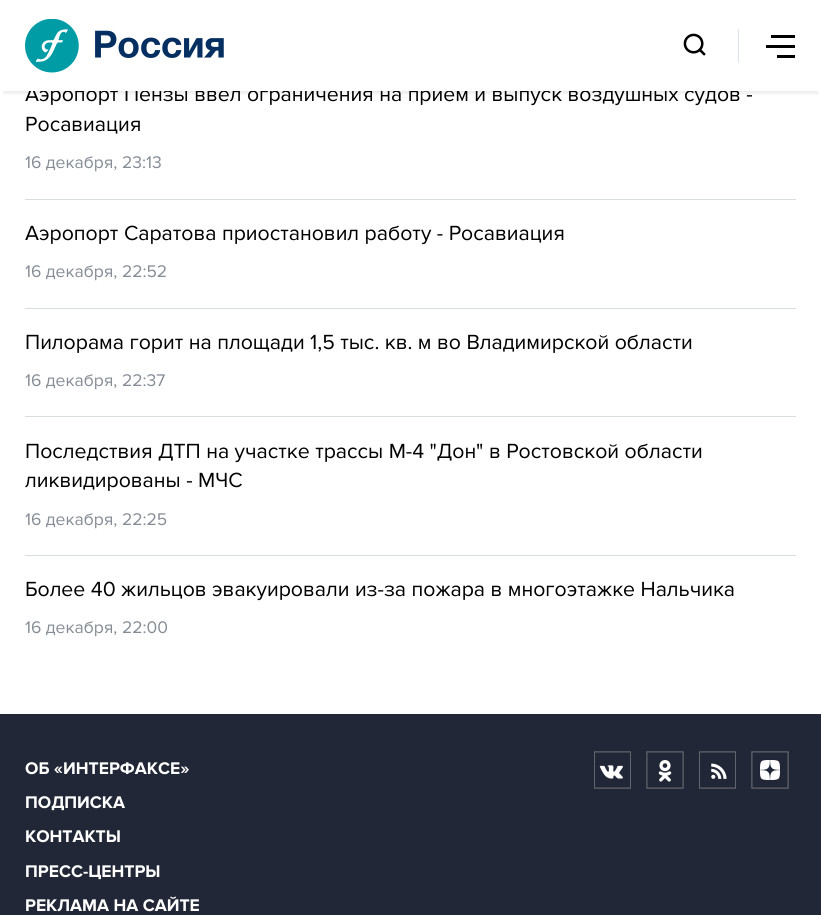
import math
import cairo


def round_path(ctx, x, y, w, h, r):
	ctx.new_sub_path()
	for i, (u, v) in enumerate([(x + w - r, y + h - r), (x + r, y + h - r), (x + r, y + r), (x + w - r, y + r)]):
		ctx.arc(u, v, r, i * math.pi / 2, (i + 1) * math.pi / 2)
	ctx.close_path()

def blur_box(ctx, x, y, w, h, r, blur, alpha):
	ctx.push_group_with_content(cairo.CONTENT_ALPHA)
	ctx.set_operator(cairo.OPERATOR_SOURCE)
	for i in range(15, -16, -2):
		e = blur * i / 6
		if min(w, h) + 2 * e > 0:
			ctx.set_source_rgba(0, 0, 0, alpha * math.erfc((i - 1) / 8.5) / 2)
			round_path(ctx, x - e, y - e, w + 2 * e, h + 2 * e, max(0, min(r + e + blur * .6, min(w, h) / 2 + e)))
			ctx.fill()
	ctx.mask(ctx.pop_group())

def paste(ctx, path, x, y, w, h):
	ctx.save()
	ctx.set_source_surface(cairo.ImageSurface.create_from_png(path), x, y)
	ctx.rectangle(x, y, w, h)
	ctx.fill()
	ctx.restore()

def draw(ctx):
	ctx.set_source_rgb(1, 1, 1)
	ctx.paint()
	ctx.select_font_face('Proxima Nova')
	ctx.set_font_size(21.25)
	ctx.set_source_rgb(0, 0, 0)
	ctx.move_to(25, 101)
	ctx.show_text('Аэропорт Пензы ввел ограничения на прием и выпуск воздушных судов -')
	ctx.set_source_rgb(1, 1, 1)
	ctx.rectangle(29, 86, 709, 5)
	ctx.fill()
	ctx.save()
	ctx.rectangle(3, 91, 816, 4)
	ctx.clip()
	ctx.set_source_rgb(0, 0, 0)
	blur_box(ctx, 4, 9, 814, 84, 0, 2.5, 0.1)
	ctx.restore()
	paste(ctx, 'media/1.png', 25, 19, 199, 54)
	ctx.set_source_rgb(0.871, 0.886, 0.914)
	ctx.rectangle(738, 29, 1, 34)
	ctx.fill()
	paste(ctx, 'media/2.png', 683, 33, 23, 23)
	ctx.set_source_rgb(0, 0, 0)
	ctx.rectangle(771, 35, 24, 3)
	ctx.rectangle(766, 45, 29, 3)
	ctx.rectangle(777, 55, 18, 3)
	ctx.fill()
	ctx.set_source_rgb(0.851, 0.863, 0.878)
	ctx.rectangle(25, 199, 771, 1)
	ctx.fill()
	ctx.set_source_rgb(0, 0, 0)
	ctx.move_to(25, 131)
	ctx.show_text('Росавиация')
	ctx.set_font_size(17.5)
	ctx.set_source_rgb(0.522, 0.549, 0.584)
	ctx.move_to(25, 168)
	ctx.show_text('16 декабря, 23:13')
	ctx.set_source_rgb(0.851, 0.863, 0.878)
	ctx.rectangle(25, 308, 771, 1)
	ctx.fill()
	ctx.set_font_size(21.25)
	ctx.set_source_rgb(0, 0, 0)
	ctx.move_to(25, 240)
	ctx.show_text('Аэропорт Саратова приостановил работу - Росавиация')
	ctx.set_font_size(17.5)
	ctx.set_source_rgb(0.522, 0.549, 0.584)
	ctx.move_to(25, 277)
	ctx.show_text('16 декабря, 22:52')
	ctx.set_source_rgb(0.851, 0.863, 0.878)
	ctx.rectangle(25, 416, 771, 1)
	ctx.fill()
	ctx.set_font_size(21.25)
	ctx.set_source_rgb(0, 0, 0)
	ctx.move_to(25, 349)
	ctx.show_text('Пилорама горит на площади 1,5 тыс. кв. м во Владимирской области')
	ctx.set_font_size(17.5)
	ctx.set_source_rgb(0.522, 0.549, 0.584)
	ctx.move_to(25, 386)
	ctx.show_text('16 декабря, 22:37')
	ctx.set_source_rgb(0.851, 0.863, 0.878)
	ctx.rectangle(25, 555, 771, 1)
	ctx.fill()
	ctx.set_font_size(21.25)
	ctx.set_source_rgb(0, 0, 0)
	ctx.move_to(25, 458)
	ctx.show_text('Последствия ДТП на участке трассы М-4 "Дон" в Ростовской области')
	ctx.move_to(25, 487)
	ctx.show_text('ликвидированы - МЧС')
	ctx.set_font_size(17.5)
	ctx.set_source_rgb(0.522, 0.549, 0.584)
	ctx.move_to(25, 525)
	ctx.show_text('16 декабря, 22:25')
	ctx.set_font_size(21.25)
	ctx.set_source_rgb(0, 0, 0)
	ctx.move_to(25, 596)
	ctx.show_text('Более 40 жильцов эвакуировали из-за пожара в многоэтажке Нальчика')
	ctx.set_font_size(17.5)
	ctx.set_source_rgb(0.522, 0.549, 0.584)
	ctx.move_to(25, 633)
	ctx.show_text('16 декабря, 22:00')
	ctx.set_source_rgb(0.129, 0.153, 0.212)
	ctx.rectangle(0, 714, 821, 201)
	ctx.fill()
	ctx.select_font_face('Proxima Nova', cairo.FONT_SLANT_NORMAL, cairo.FONT_WEIGHT_BOLD)
	ctx.set_source_rgb(1, 1, 1)
	for x, y, s in [
		(25, 774, 'ОБ «ИНТЕРФАКСЕ»'),
		(25, 808, 'ПОДПИСКА'),
		(25, 842, 'КОНТАКТЫ'),
		(25, 877, 'ПРЕСС-ЦЕНТРЫ'),
		(25, 911, 'РЕКЛАМА НА САЙТЕ'),
	]:
		ctx.move_to(x, y)
		ctx.show_text(s)
	paste(ctx, 'media/3.png', 594, 751, 37, 38)
	paste(ctx, 'media/4.png', 646, 751, 38, 38)
	paste(ctx, 'media/5.png', 699, 751, 37, 38)
	paste(ctx, 'media/6.png', 751, 751, 38, 38)


surface = cairo.ImageSurface(cairo.FORMAT_RGB24, 821, 915)
ctx = cairo.Context(surface)
options = cairo.FontOptions()
options.set_hint_metrics(cairo.HINT_METRICS_OFF)
options.set_hint_style(cairo.HINT_STYLE_NONE)
ctx.set_font_options(options)
ctx.set_miter_limit(4)
draw(ctx)
surface.write_to_png('image.png')
